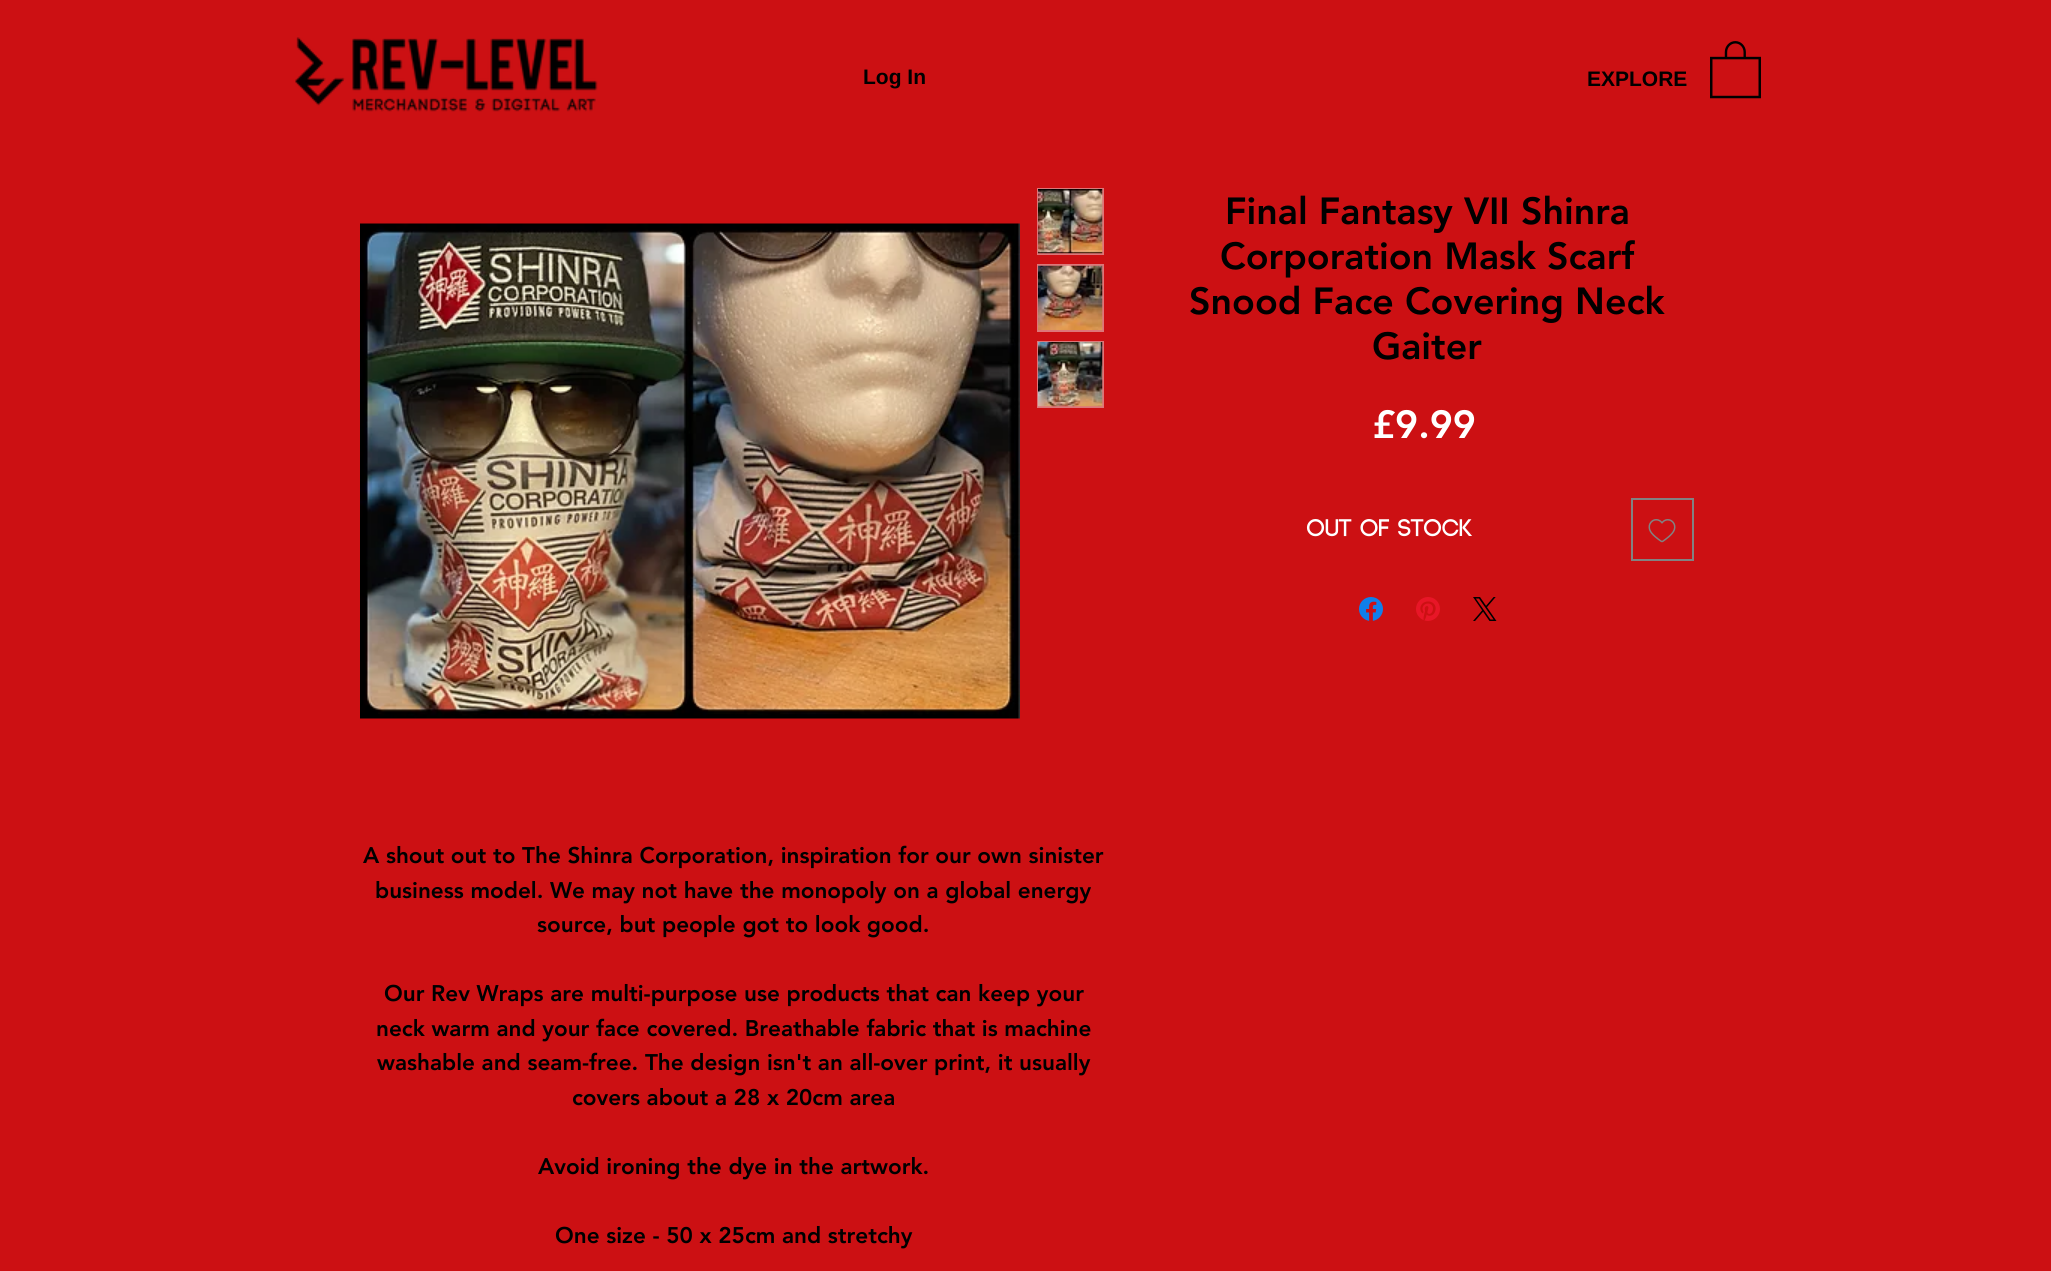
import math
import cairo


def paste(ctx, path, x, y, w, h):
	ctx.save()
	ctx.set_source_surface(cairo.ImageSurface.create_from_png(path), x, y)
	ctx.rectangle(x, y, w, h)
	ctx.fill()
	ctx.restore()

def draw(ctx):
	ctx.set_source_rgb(0.8, 0.063, 0.075)
	ctx.paint()
	paste(ctx, 'media/1.png', 295, 37, 303, 75)
	ctx.select_font_face('Liberation Sans', cairo.FONT_SLANT_NORMAL, cairo.FONT_WEIGHT_BOLD)
	ctx.set_font_size(21)
	ctx.set_source_rgb(0, 0, 0)
	ctx.move_to(863, 84)
	ctx.show_text('Log In')
	ctx.move_to(1587, 86)
	ctx.show_text('EXPLORE')
	paste(ctx, 'media/2.png', 1710, 41, 51, 58)
	ctx.select_font_face('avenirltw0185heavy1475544 Black')
	ctx.set_font_size(37.5)
	for x, y, s in [
		(1225, 224, 'Final Fantasy VII Shinra'),
		(1220, 269, 'Corporation Mask Scarf'),
		(1189, 314, 'Snood Face Covering Neck'),
		(1372, 359, 'Gaiter'),
	]:
		ctx.move_to(x, y)
		ctx.show_text(s)
	ctx.set_font_size(39)
	ctx.set_source_rgb(1, 1, 1)
	ctx.move_to(1372, 438)
	ctx.show_text('£9.99')
	ctx.select_font_face('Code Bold', cairo.FONT_SLANT_NORMAL, cairo.FONT_WEIGHT_BOLD)
	ctx.set_font_size(24)
	ctx.move_to(1307, 536)
	ctx.show_text('Out of Stock')
	ctx.rectangle(1632, 499, 61, 61)
	ctx.set_source_rgb(0.51, 0.51, 0.51)
	ctx.stroke()
	paste(ctx, 'media/3.png', 1648, 519, 28, 24)
	paste(ctx, 'media/4.png', 1359, 597, 24, 24)
	paste(ctx, 'media/5.png', 1416, 597, 24, 24)
	paste(ctx, 'media/6.png', 1473, 597, 24, 24)
	paste(ctx, 'media/7.png', 360, 223, 660, 496)
	ctx.set_source_rgb(0.867, 0.467, 0.475)
	ctx.rectangle(1037, 188, 67, 67)
	ctx.fill()
	paste(ctx, 'media/8.png', 1038, 189, 65, 65)
	ctx.rectangle(1037, 264, 67, 68)
	ctx.fill()
	paste(ctx, 'media/9.png', 1038, 265, 65, 65)
	ctx.rectangle(1037, 341, 67, 67)
	ctx.fill()
	paste(ctx, 'media/10.png', 1038, 342, 65, 65)
	ctx.select_font_face('avenirltw0185heavy1475544 Black')
	ctx.set_font_size(22.5)
	ctx.set_source_rgb(0, 0, 0)
	for x, y, s in [
		(363, 863, 'A shout out to The Shinra Corporation, inspiration for our own sinister'),
		(375, 898, 'business model. We may not have the monopoly on a global energy'),
		(537, 932, 'source, but people got to look good.'),
		(384, 1001, 'Our Rev Wraps are multi-purpose use products that can keep your'),
		(376, 1036, 'neck warm and your face covered. Breathable fabric that is machine'),
		(377, 1070, 'washable and seam-free. The design isn\'t an all-over print, it usually'),
		(572, 1105, 'covers about a 28 x 20cm area'),
		(538, 1174, 'Avoid ironing the dye in the artwork.'),
		(555, 1243, 'One size - 50 x 25cm and stretchy'),
	]:
		ctx.move_to(x, y)
		ctx.show_text(s)


surface = cairo.ImageSurface(cairo.FORMAT_RGB24, 2051, 1271)
ctx = cairo.Context(surface)
options = cairo.FontOptions()
options.set_hint_metrics(cairo.HINT_METRICS_OFF)
options.set_hint_style(cairo.HINT_STYLE_NONE)
ctx.set_font_options(options)
ctx.set_miter_limit(4)
draw(ctx)
surface.write_to_png('image.png')
